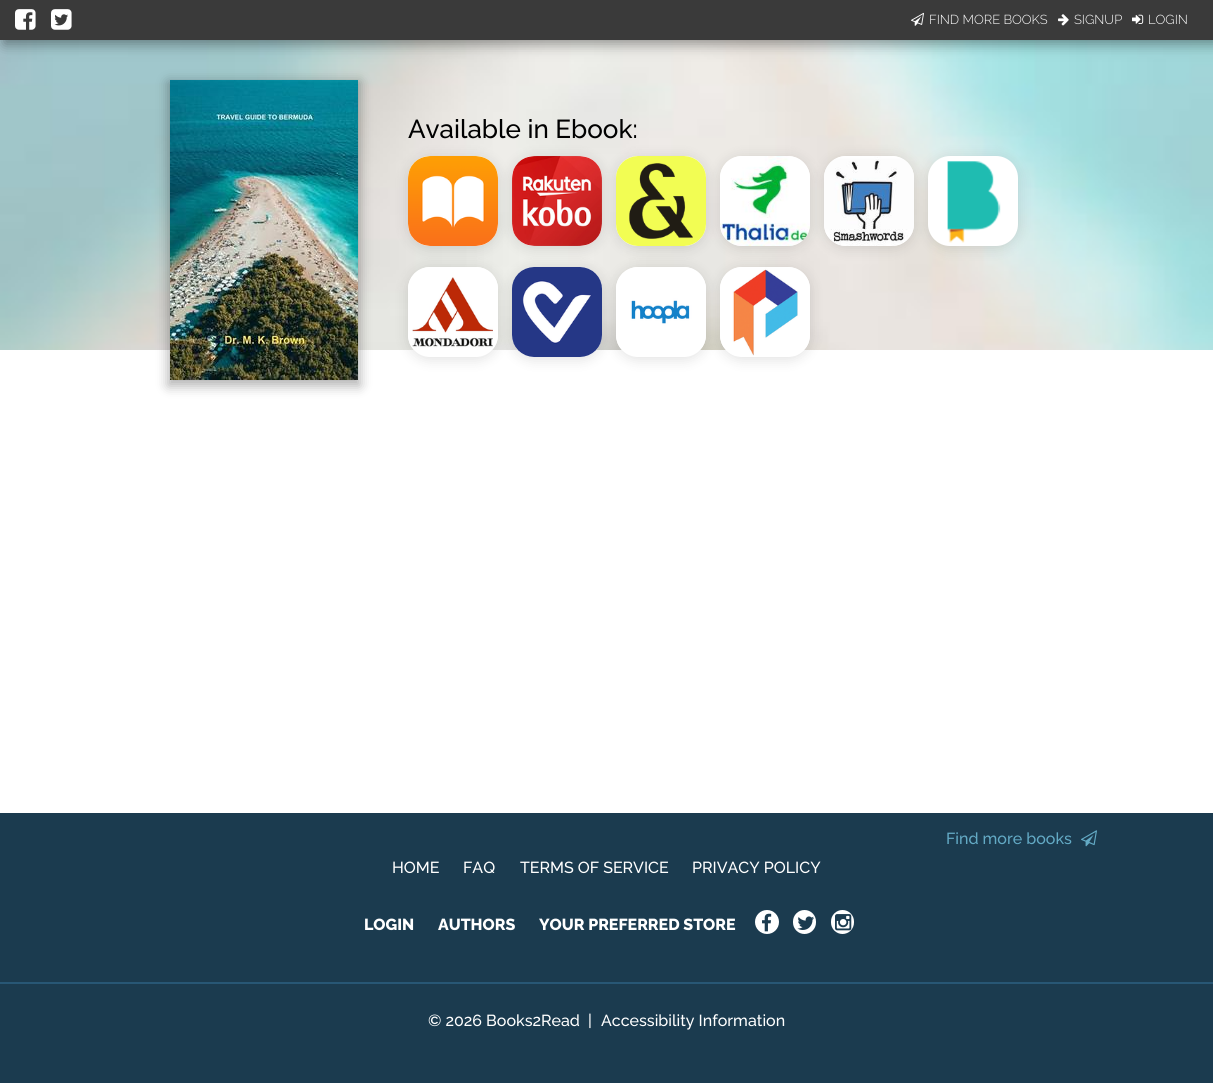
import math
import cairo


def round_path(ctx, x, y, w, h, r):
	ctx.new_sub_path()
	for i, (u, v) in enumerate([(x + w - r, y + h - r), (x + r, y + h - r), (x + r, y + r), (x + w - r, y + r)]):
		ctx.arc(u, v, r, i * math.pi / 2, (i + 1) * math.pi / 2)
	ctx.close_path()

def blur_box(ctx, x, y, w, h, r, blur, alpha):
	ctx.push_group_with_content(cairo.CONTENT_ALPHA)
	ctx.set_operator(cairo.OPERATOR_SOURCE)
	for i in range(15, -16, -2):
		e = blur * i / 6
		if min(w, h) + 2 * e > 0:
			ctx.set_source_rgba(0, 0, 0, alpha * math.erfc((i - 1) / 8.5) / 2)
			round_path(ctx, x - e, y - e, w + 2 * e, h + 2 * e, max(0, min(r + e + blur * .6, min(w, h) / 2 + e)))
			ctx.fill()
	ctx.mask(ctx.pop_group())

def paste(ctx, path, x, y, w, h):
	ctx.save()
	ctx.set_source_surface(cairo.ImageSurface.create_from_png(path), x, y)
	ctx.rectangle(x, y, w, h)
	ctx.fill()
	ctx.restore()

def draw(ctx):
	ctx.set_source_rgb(1, 1, 1)
	ctx.paint()
	paste(ctx, 'media/1.png', 0, 40, 1213, 310)
	ctx.set_source_rgb(0, 0, 0)
	blur_box(ctx, 4, 4, 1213, 40, 0, 7, 0.4)
	ctx.set_source_rgb(0.227, 0.227, 0.227)
	ctx.rectangle(0, 0, 1213, 40)
	ctx.fill()
	paste(ctx, 'media/2.png', 15, 9, 21, 21)
	paste(ctx, 'media/3.png', 51, 9, 21, 21)
	paste(ctx, 'media/4.png', 911, 12, 13, 14)
	ctx.select_font_face('Raleway Light')
	ctx.set_font_size(13)
	ctx.set_source_rgb(1, 1, 1)
	ctx.move_to(929, 24)
	ctx.show_text('FIND MORE BOOKS')
	paste(ctx, 'media/5.png', 1058, 14, 11, 12)
	ctx.move_to(1074, 24)
	ctx.show_text('SIGNUP')
	paste(ctx, 'media/6.png', 1132, 14, 12, 10)
	ctx.move_to(1148, 24)
	ctx.show_text('LOGIN')
	ctx.set_source_rgb(0, 0, 0)
	blur_box(ctx, 168, 82, 192, 304, 0, 6, 0.3)
	paste(ctx, 'media/7.png', 170, 80, 188, 300)
	blur_box(ctx, 406, 156, 94, 94, 24, 6, 0.1)
	ctx.set_source_rgb(1, 1, 1)
	round_path(ctx, 408, 156, 90, 90, 22)
	ctx.fill()
	paste(ctx, 'media/8.png', 408, 156, 90, 90)
	ctx.set_source_rgb(0, 0, 0)
	blur_box(ctx, 510, 156, 94, 94, 24, 6, 0.1)
	ctx.set_source_rgb(1, 1, 1)
	round_path(ctx, 512, 156, 90, 90, 22)
	ctx.fill()
	paste(ctx, 'media/9.png', 512, 156, 90, 90)
	ctx.set_source_rgb(0, 0, 0)
	blur_box(ctx, 614, 156, 94, 94, 24, 6, 0.1)
	ctx.select_font_face('Raleway Medium')
	ctx.set_font_size(26)
	ctx.set_source_rgb(0, 0, 0)
	ctx.move_to(408, 138)
	ctx.show_text('Available in Ebook:')
	ctx.set_source_rgb(1, 1, 1)
	round_path(ctx, 616, 156, 90, 90, 22)
	ctx.fill()
	paste(ctx, 'media/10.png', 616, 156, 90, 90)
	ctx.set_source_rgb(0, 0, 0)
	blur_box(ctx, 718, 156, 94, 94, 24, 6, 0.1)
	ctx.set_source_rgb(1, 1, 1)
	round_path(ctx, 720, 156, 90, 90, 22)
	ctx.fill()
	paste(ctx, 'media/11.png', 720, 156, 90, 90)
	ctx.set_source_rgb(0, 0, 0)
	blur_box(ctx, 822, 156, 94, 94, 24, 6, 0.1)
	ctx.set_source_rgb(1, 1, 1)
	round_path(ctx, 824, 156, 90, 90, 22)
	ctx.fill()
	paste(ctx, 'media/12.png', 824, 156, 90, 90)
	ctx.set_source_rgb(0, 0, 0)
	blur_box(ctx, 926, 156, 94, 94, 24, 6, 0.1)
	ctx.set_source_rgb(1, 1, 1)
	round_path(ctx, 928, 156, 90, 90, 22)
	ctx.fill()
	paste(ctx, 'media/13.png', 947, 161, 54, 82)
	ctx.set_source_rgb(0, 0, 0)
	blur_box(ctx, 406, 267, 94, 94, 24, 6, 0.1)
	ctx.set_source_rgb(1, 1, 1)
	round_path(ctx, 408, 267, 90, 90, 22)
	ctx.fill()
	paste(ctx, 'media/14.png', 408, 267, 90, 83)
	ctx.set_source_rgb(0, 0, 0)
	blur_box(ctx, 510, 267, 94, 94, 24, 6, 0.1)
	ctx.set_source_rgb(1, 1, 1)
	round_path(ctx, 512, 267, 90, 90, 22)
	ctx.fill()
	paste(ctx, 'media/15.png', 512, 267, 90, 90)
	ctx.set_source_rgb(0, 0, 0)
	blur_box(ctx, 614, 267, 94, 94, 24, 6, 0.1)
	ctx.set_source_rgb(1, 1, 1)
	round_path(ctx, 616, 267, 90, 90, 22)
	ctx.fill()
	paste(ctx, 'media/16.png', 616, 267, 90, 83)
	ctx.set_source_rgb(0, 0, 0)
	blur_box(ctx, 718, 267, 94, 94, 24, 6, 0.1)
	ctx.set_source_rgb(1, 1, 1)
	round_path(ctx, 720, 267, 90, 90, 22)
	ctx.fill()
	paste(ctx, 'media/17.png', 720, 267, 90, 89)
	ctx.set_source_rgb(0.106, 0.231, 0.31)
	ctx.rectangle(0, 813, 1213, 270)
	ctx.fill()
	ctx.set_font_size(16)
	ctx.set_source_rgb(0.388, 0.667, 0.773)
	ctx.move_to(946, 844)
	ctx.show_text('Find more books')
	paste(ctx, 'media/18.png', 1081, 830, 16, 17)
	ctx.set_source_rgb(1, 1, 1)
	for x, y, s in [
		(392, 873, 'HOME'),
		(463, 873, 'FAQ'),
		(520, 873, 'TERMS OF SERVICE'),
		(692, 873, 'PRIVACY POLICY'),
	]:
		ctx.move_to(x, y)
		ctx.show_text(s)
	ctx.select_font_face('Raleway ExtraBold')
	for x, y, s in [
		(364, 930, 'LOGIN'),
		(438, 930, 'AUTHORS'),
		(539, 930, 'YOUR PREFERRED STORE'),
	]:
		ctx.move_to(x, y)
		ctx.show_text(s)
	ctx.new_path()
	ctx.arc(767, 922, 12, 0, 2 * math.pi)
	ctx.fill()
	paste(ctx, 'media/19.png', 762, 913, 10, 19)
	round_path(ctx, 793, 910, 23, 24, 11.5)
	ctx.fill()
	paste(ctx, 'media/20.png', 797, 916, 17, 14)
	round_path(ctx, 831, 910, 23, 24, 11.5)
	ctx.fill()
	paste(ctx, 'media/21.png', 835, 914, 17, 17)
	ctx.set_source_rgb(0.157, 0.341, 0.459)
	ctx.rectangle(0, 982, 1213, 2)
	ctx.fill()
	ctx.select_font_face('Raleway Medium')
	ctx.set_source_rgb(1, 1, 1)
	for x, y, s in [
		(428, 1026, '© 2026 Books2Read'),
		(588, 1026, '|'),
		(601, 1026, 'Accessibility Information'),
	]:
		ctx.move_to(x, y)
		ctx.show_text(s)


surface = cairo.ImageSurface(cairo.FORMAT_RGB24, 1213, 1083)
ctx = cairo.Context(surface)
options = cairo.FontOptions()
options.set_hint_metrics(cairo.HINT_METRICS_OFF)
options.set_hint_style(cairo.HINT_STYLE_NONE)
ctx.set_font_options(options)
ctx.set_miter_limit(4)
draw(ctx)
surface.write_to_png('image.png')
